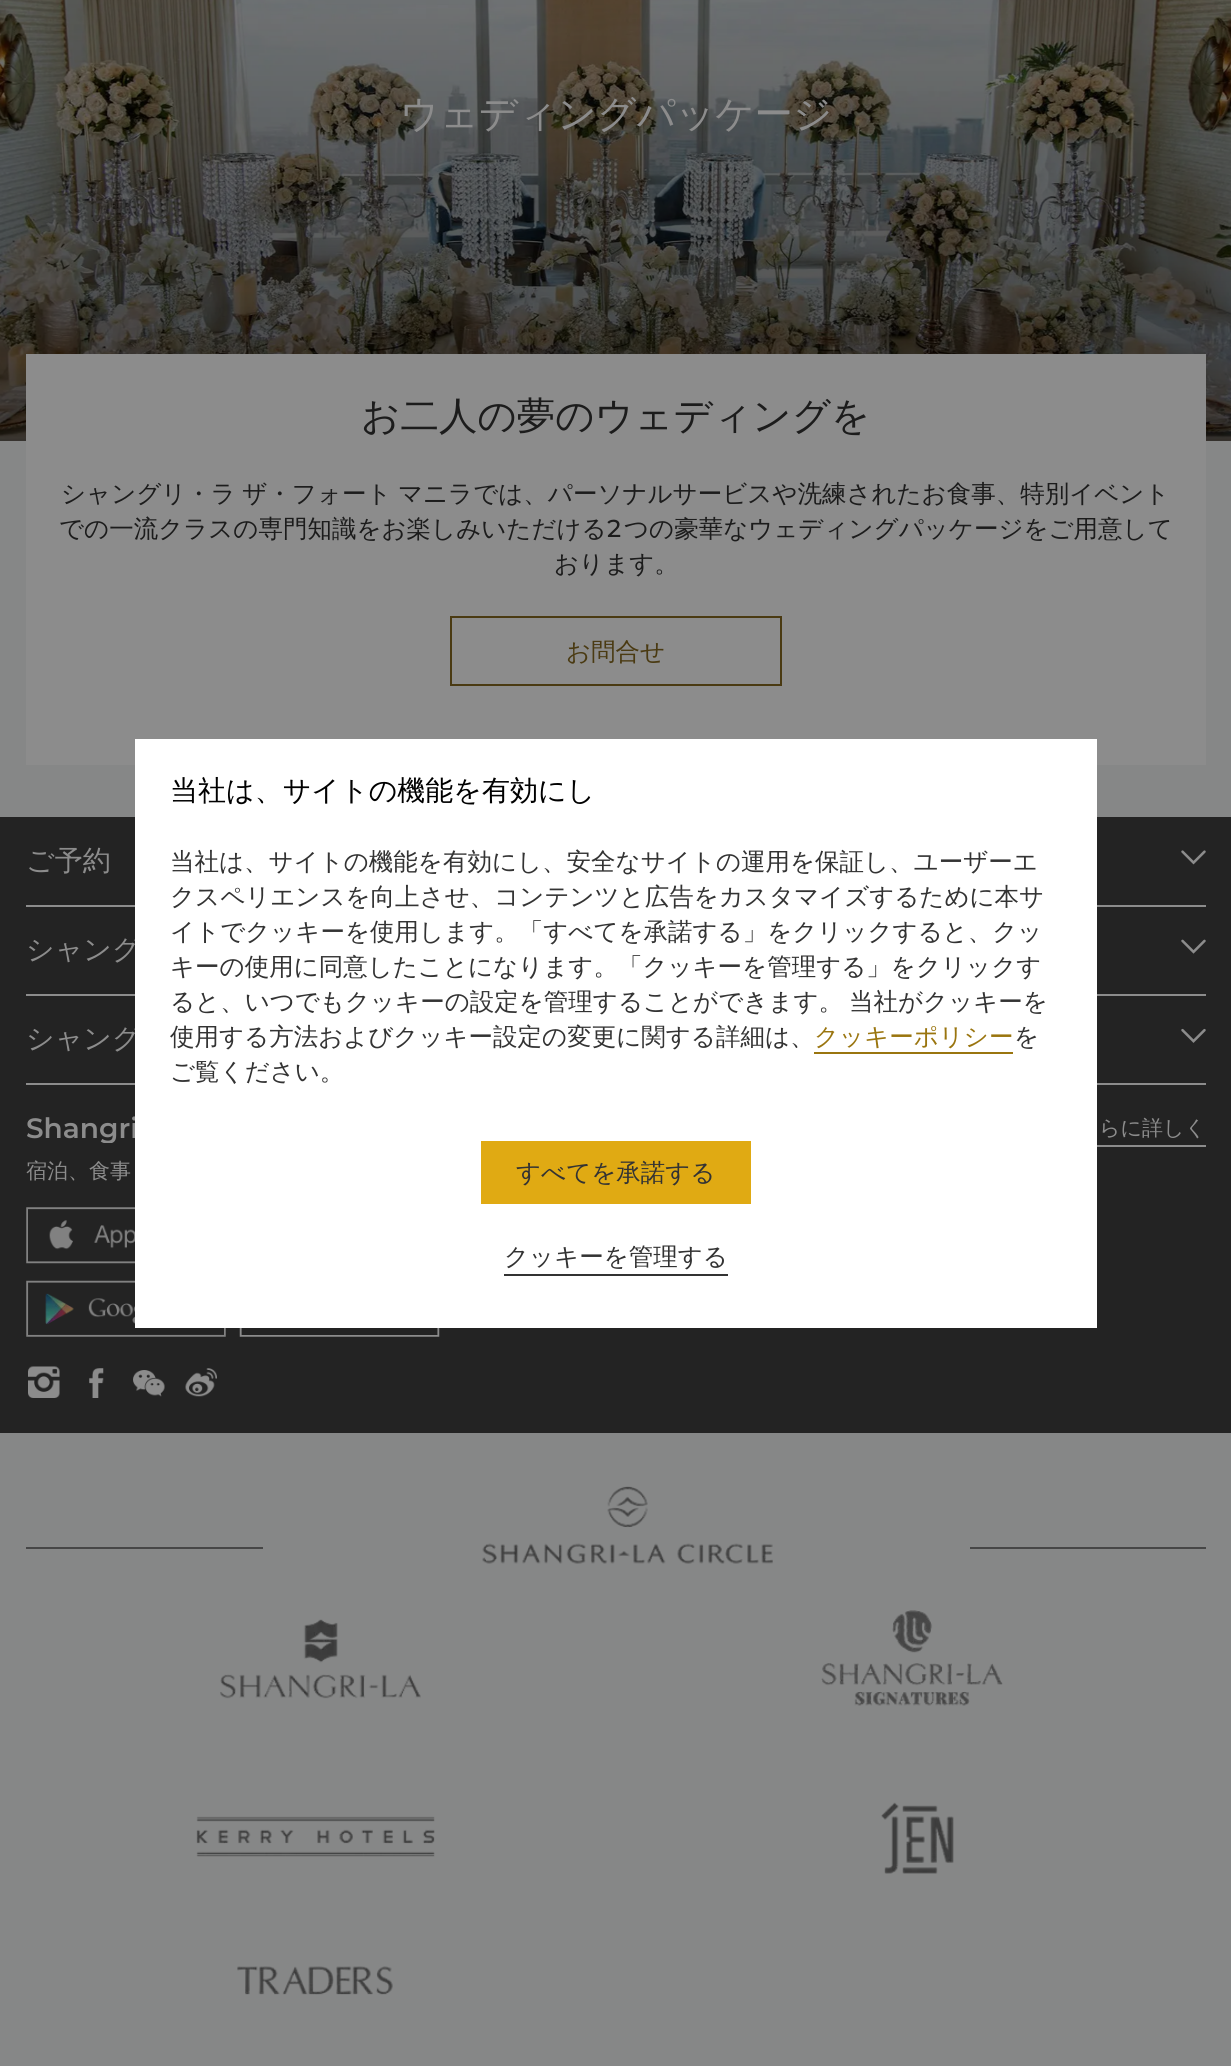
import math
import cairo


def write_spaced(ctx, x, y, s, letter, word):
	ctx.move_to(x, y)
	for ch in s:
		ctx.show_text(ch)
		ctx.rel_move_to(letter + word * (ch == ' '), 0)

def paste(ctx, path, x, y, w, h):
	ctx.save()
	ctx.set_source_surface(cairo.ImageSurface.create_from_png(path), x, y)
	ctx.rectangle(x, y, w, h)
	ctx.fill()
	ctx.restore()

def draw(ctx):
	ctx.set_source_rgb(0.525, 0.529, 0.529)
	ctx.paint()
	paste(ctx, 'media/1.png', 0, 0, 1231, 441)
	gradient = cairo.LinearGradient(616, -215, 616, 441)
	gradient.add_color_stop_rgba(0, 0, 0, 0, 0)
	gradient.add_color_stop_rgba(1, 0, 0, 0, 0.5)
	ctx.set_source(gradient)
	ctx.rectangle(0, 0, 1231, 441)
	ctx.fill()
	ctx.select_font_face('WenQuanYi Zen Hei Medium')
	ctx.set_font_size(38.5)
	ctx.set_source_rgb(0.549, 0.549, 0.549)
	ctx.move_to(400, 127)
	ctx.show_text('ウェディングパッケージ')
	ctx.rectangle(26, 354, 1180, 411)
	ctx.fill()
	ctx.set_source_rgb(0.11, 0.11, 0.11)
	ctx.move_to(361, 429)
	ctx.show_text('お二人の夢のウェディングを')
	ctx.set_font_size(24.5)
	write_spaced(ctx, 61, 502, 'シャングリ・ラ ザ・フォート マニラでは、パーソナルサービスや洗練されたお食事、特別イベント', 0, -1)
	ctx.move_to(59, 537)
	ctx.show_text('での一流クラスの専門知識をお楽しみいただける')
	ctx.select_font_face('Montserrat Medium')
	ctx.move_to(607, 537)
	ctx.show_text('2')
	ctx.select_font_face('WenQuanYi Zen Hei Medium')
	ctx.move_to(624, 537)
	ctx.show_text('つの豪華なウェディングパッケージをご用意して')
	ctx.move_to(554, 572)
	ctx.show_text('おります。')
	ctx.rectangle(451, 617, 330, 68)
	ctx.set_source_rgb(0.29, 0.227, 0.071)
	ctx.stroke()
	ctx.move_to(566, 660)
	ctx.show_text('お問合せ')
	ctx.set_source_rgb(0.137, 0.137, 0.137)
	ctx.rectangle(0, 817, 1231, 616)
	ctx.fill()
	ctx.set_source_rgb(0.549, 0.549, 0.549)
	ctx.rectangle(26, 905, 1180, 2)
	ctx.fill()
	ctx.set_font_size(28)
	ctx.move_to(26, 870)
	ctx.show_text('ご予約')
	paste(ctx, 'media/2.png', 1181, 850, 25, 15)
	ctx.rectangle(26, 994, 1180, 2)
	ctx.fill()
	write_spaced(ctx, 26, 959, 'シャング', 0, -1)
	paste(ctx, 'media/3.png', 1181, 939, 25, 15)
	write_spaced(ctx, 26, 1048, 'シャング', 0, -1)
	paste(ctx, 'media/4.png', 1181, 1028, 25, 15)
	ctx.rectangle(26, 1083, 1180, 2)
	ctx.fill()
	ctx.save()
	ctx.rectangle(26, 1115, 1038, 28)
	ctx.clip()
	ctx.select_font_face('Montserrat SemiBold')
	ctx.move_to(26, 1138)
	ctx.show_text('Shangri')
	ctx.restore()
	ctx.rectangle(1097, 1145, 109, 2)
	ctx.fill()
	ctx.set_font_size(21)
	ctx.move_to(1099, 1135)
	ctx.show_text('らに詳しく')
	write_spaced(ctx, 26, 1178, '宿泊、食事', 0, -1)
	paste(ctx, 'media/5.png', 26, 1207, 109, 57)
	paste(ctx, 'media/6.png', 26, 1280, 200, 57)
	paste(ctx, 'media/7.png', 239, 1328, 201, 9)
	paste(ctx, 'media/8.png', 28, 1366, 32, 32)
	paste(ctx, 'media/9.png', 89, 1368, 15, 30)
	paste(ctx, 'media/10.png', 133, 1370, 32, 27)
	paste(ctx, 'media/11.png', 185, 1368, 32, 29)
	ctx.set_source_rgb(0.275, 0.275, 0.275)
	ctx.rectangle(26, 1547, 237, 2)
	ctx.fill()
	paste(ctx, 'media/12.png', 482, 1486, 291, 78)
	ctx.rectangle(970, 1547, 236, 2)
	ctx.fill()
	paste(ctx, 'media/13.png', 220, 1619, 201, 80)
	paste(ctx, 'media/14.png', 821, 1610, 182, 96)
	paste(ctx, 'media/15.png', 196, 1816, 239, 41)
	paste(ctx, 'media/16.png', 881, 1802, 73, 72)
	paste(ctx, 'media/17.png', 237, 1966, 156, 29)
	ctx.set_source_rgb(1, 1, 1)
	ctx.rectangle(135, 739, 962, 589)
	ctx.fill()
	ctx.set_font_size(28)
	ctx.set_source_rgb(0, 0, 0)
	ctx.move_to(170, 800)
	ctx.show_text('当社は、サイトの機能を有効にし')
	ctx.set_font_size(24.5)
	ctx.set_source_rgb(0.2, 0.2, 0.2)
	for x, y, s in [
		(170, 870, '当社は、サイトの機能を有効にし、安全なサイトの運用を保証し、ユーザーエ'),
		(170, 905, 'クスペリエンスを向上させ、コンテンツと広告をカスタマイズするために本サ'),
		(170, 940, 'イトでクッキーを使用します。「すべてを承諾する」をクリックすると、クッ'),
		(170, 975, 'キーの使用に同意したことになります。「クッキーを管理する」をクリックす'),
		(170, 1010, 'ると、いつでもクッキーの設定を管理することができます。'),
		(849, 1010, '当社がクッキーを'),
		(170, 1045, '使用する方法およびクッキー設定の変更に関する詳細は、'),
	]:
		ctx.move_to(x, y)
		ctx.show_text(s)
	ctx.set_source_rgb(0.604, 0.459, 0.059)
	ctx.move_to(814, 1045)
	ctx.show_text('クッキーポリシー')
	ctx.rectangle(814, 1052, 199, 2)
	ctx.fill()
	ctx.set_source_rgb(0.2, 0.2, 0.2)
	ctx.move_to(1014, 1045)
	ctx.show_text('を')
	ctx.move_to(170, 1080)
	ctx.show_text('ご覧ください。')
	ctx.set_source_rgb(0.878, 0.667, 0.078)
	ctx.rectangle(481, 1141, 270, 63)
	ctx.fill()
	ctx.set_source_rgb(0.2, 0.2, 0.2)
	ctx.move_to(516, 1181)
	ctx.show_text('すべてを承諾する')
	ctx.rectangle(504, 1274, 224, 2)
	ctx.fill()
	ctx.move_to(504, 1265)
	ctx.show_text('クッキーを管理する')


surface = cairo.ImageSurface(cairo.FORMAT_RGB24, 1231, 2066)
ctx = cairo.Context(surface)
options = cairo.FontOptions()
options.set_hint_metrics(cairo.HINT_METRICS_OFF)
options.set_hint_style(cairo.HINT_STYLE_NONE)
ctx.set_font_options(options)
ctx.set_miter_limit(4)
draw(ctx)
surface.write_to_png('image.png')
